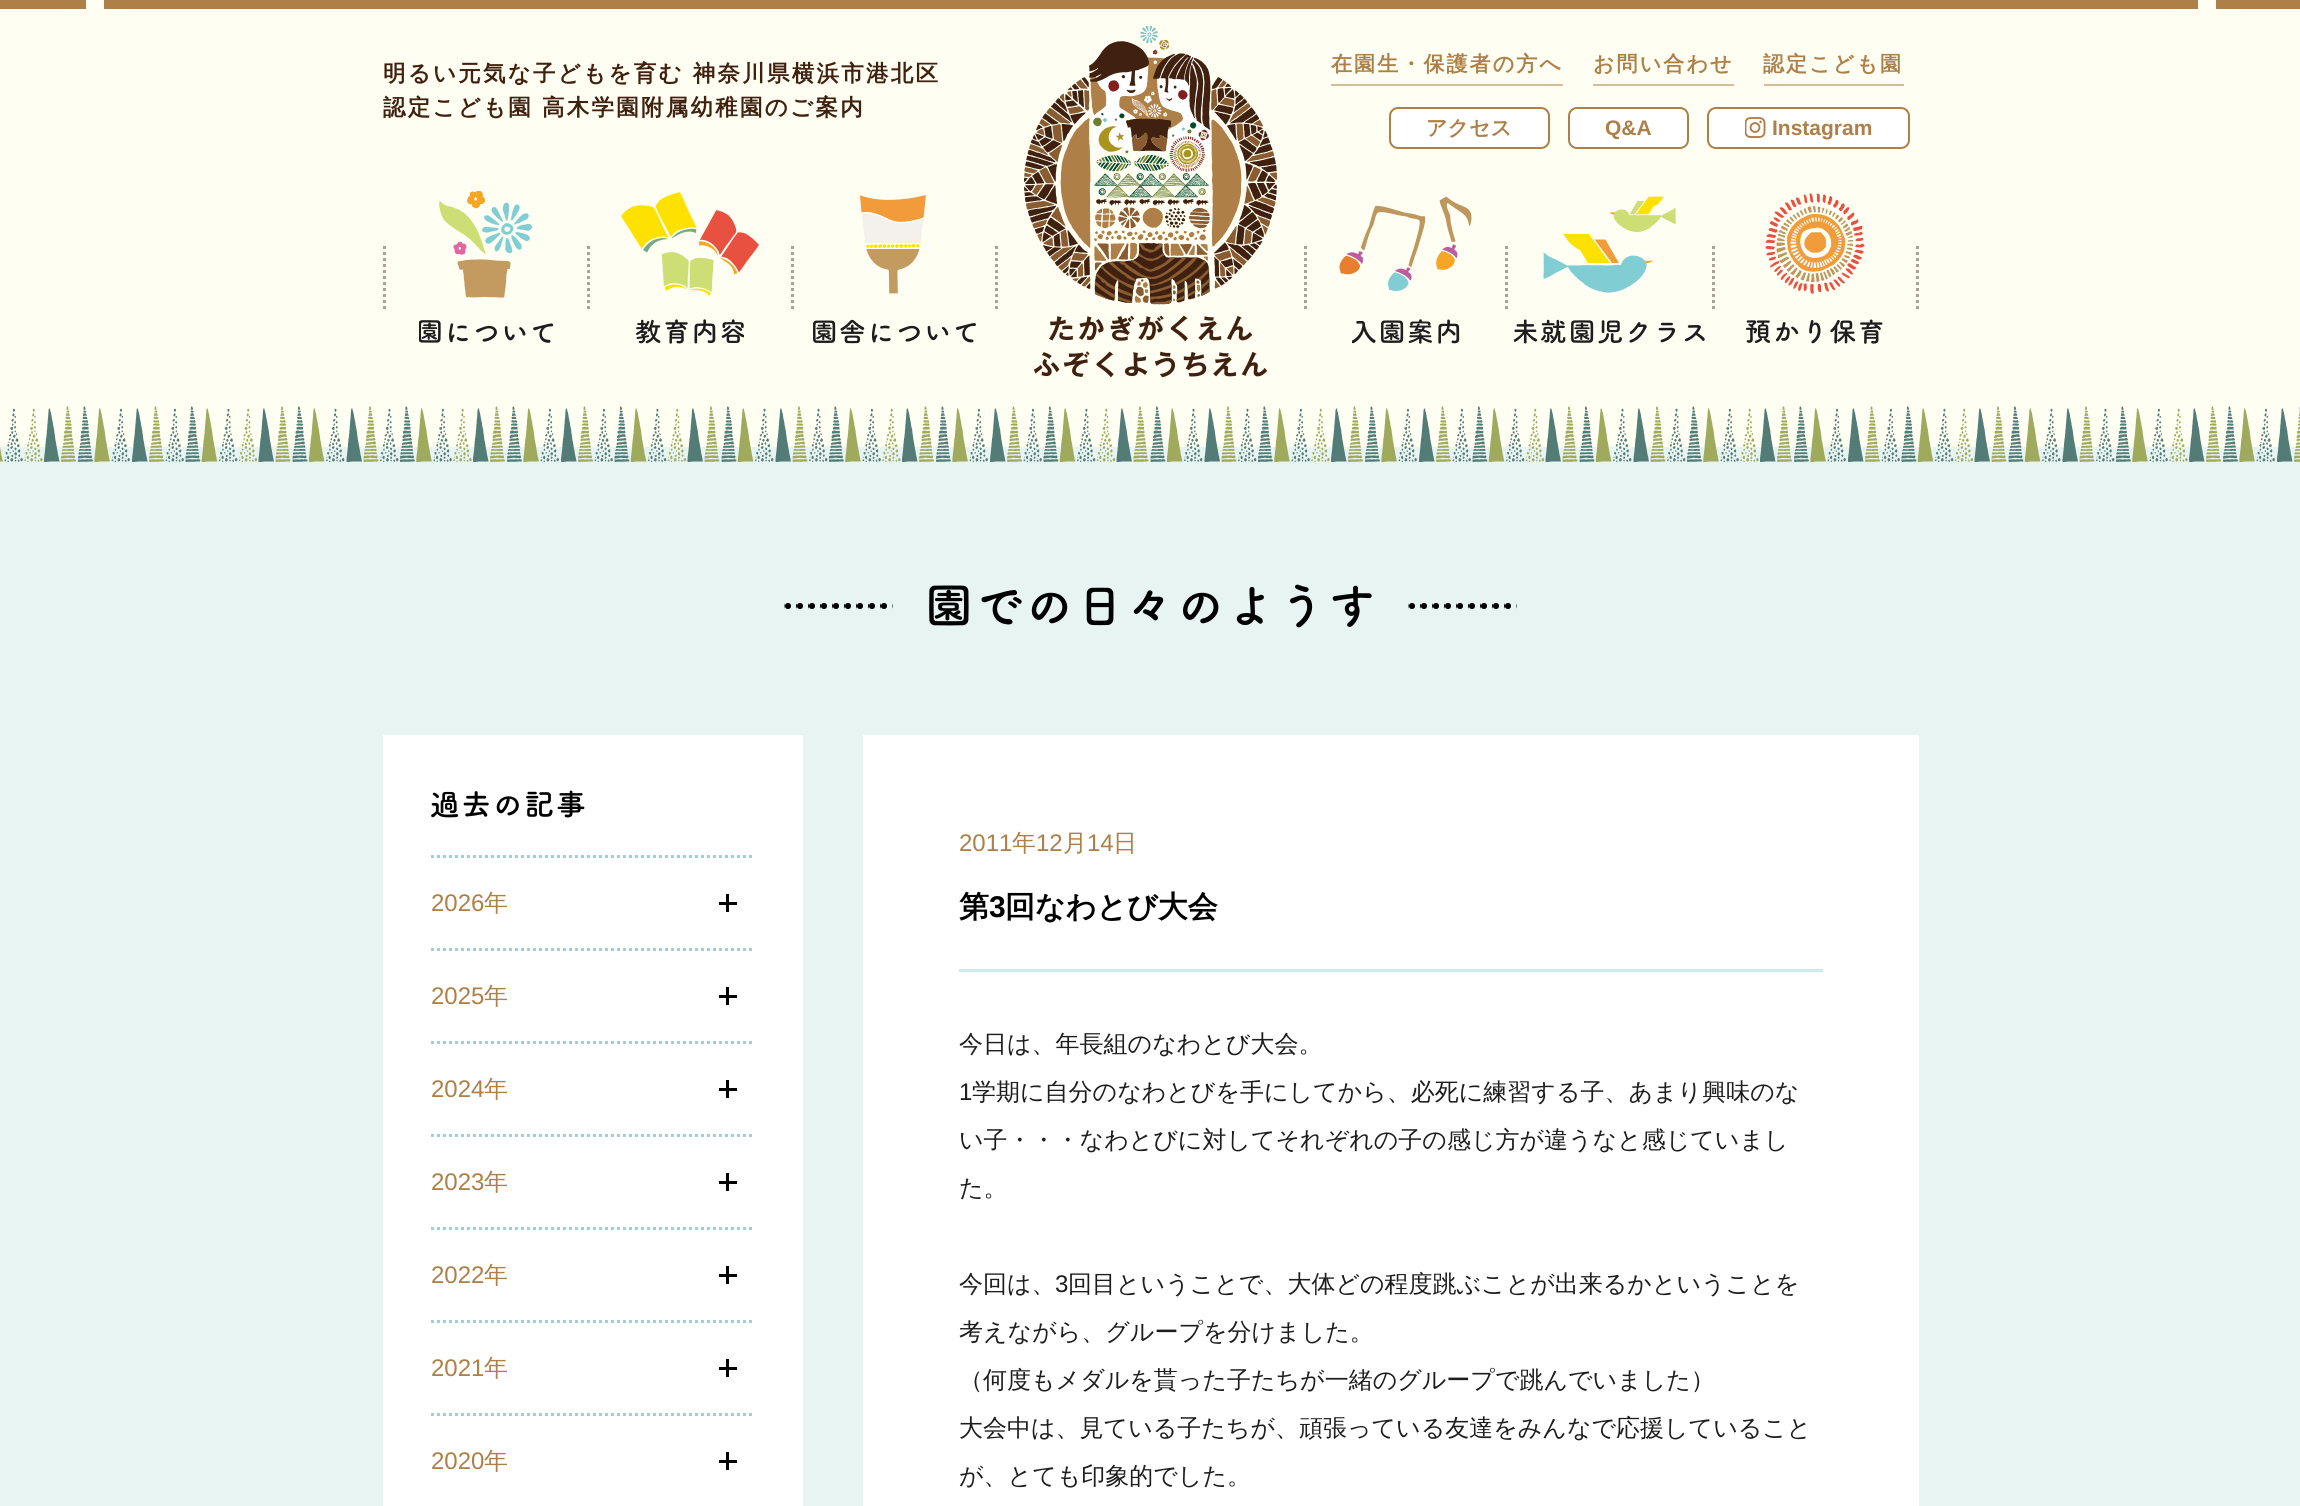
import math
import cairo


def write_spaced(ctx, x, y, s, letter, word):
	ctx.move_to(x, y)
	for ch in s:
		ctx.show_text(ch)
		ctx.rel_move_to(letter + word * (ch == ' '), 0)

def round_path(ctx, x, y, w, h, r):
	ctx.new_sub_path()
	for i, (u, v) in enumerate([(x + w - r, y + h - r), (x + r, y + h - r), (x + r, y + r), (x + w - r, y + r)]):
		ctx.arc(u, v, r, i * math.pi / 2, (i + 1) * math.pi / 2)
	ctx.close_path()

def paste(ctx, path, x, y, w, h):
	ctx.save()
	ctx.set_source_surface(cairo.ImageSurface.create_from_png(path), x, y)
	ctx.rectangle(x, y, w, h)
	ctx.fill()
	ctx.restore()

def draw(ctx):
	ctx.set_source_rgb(0.906, 0.957, 0.945)
	ctx.paint()
	ctx.set_source_rgb(0.682, 0.498, 0.275)
	ctx.rectangle(0, 0, 2300, 9)
	ctx.fill()
	ctx.set_source_rgb(1, 0.996, 0.953)
	ctx.rectangle(86, 0, 18, 9)
	ctx.rectangle(2198, 0, 18, 9)
	ctx.rectangle(0, 9, 2300, 438)
	ctx.fill()
	ctx.select_font_face('WenQuanYi Zen Hei', cairo.FONT_SLANT_NORMAL, cairo.FONT_WEIGHT_BOLD)
	ctx.set_font_size(22.5)
	ctx.set_source_rgb(0.251, 0.129, 0.059)
	write_spaced(ctx, 383, 81, '明るい元気な子どもを育む 神奈川県横浜市港北区', 2.25, 0)
	write_spaced(ctx, 383, 115, '認定こども園 高木学園附属幼稚園のご案内', 2.25, 0)
	paste(ctx, 'media/1.png', 1023, 26, 255, 279)
	paste(ctx, 'media/2.png', 1033, 315, 235, 63)
	ctx.set_font_size(21)
	ctx.set_source_rgb(0.682, 0.498, 0.275)
	write_spaced(ctx, 1331, 71, '在園生・保護者の方へ', 2.1, 0)
	ctx.set_source_rgb(0.839, 0.737, 0.608)
	ctx.rectangle(1331, 84, 232, 2)
	ctx.fill()
	ctx.set_source_rgb(0.682, 0.498, 0.275)
	write_spaced(ctx, 1593, 71, 'お問い合わせ', 2.1, 0)
	ctx.set_source_rgb(0.839, 0.737, 0.608)
	ctx.rectangle(1593, 84, 141, 2)
	ctx.fill()
	ctx.set_source_rgb(0.682, 0.498, 0.275)
	write_spaced(ctx, 1763, 71, '認定こども園', 2.1, 0)
	ctx.set_source_rgb(0.839, 0.737, 0.608)
	ctx.rectangle(1764, 84, 140, 2)
	ctx.fill()
	ctx.set_source_rgb(1, 1, 1)
	round_path(ctx, 1390, 108, 159, 40, 8)
	ctx.fill_preserve()
	ctx.set_source_rgb(0.682, 0.498, 0.275)
	ctx.stroke()
	ctx.move_to(1426, 135)
	ctx.show_text('アクセス')
	ctx.set_source_rgb(1, 1, 1)
	round_path(ctx, 1569, 108, 119, 40, 8)
	ctx.fill_preserve()
	ctx.set_source_rgb(0.682, 0.498, 0.275)
	ctx.stroke()
	ctx.select_font_face('Liberation Sans', cairo.FONT_SLANT_NORMAL, cairo.FONT_WEIGHT_BOLD)
	ctx.move_to(1605, 135)
	ctx.show_text('Q&A')
	ctx.set_source_rgb(1, 1, 1)
	round_path(ctx, 1708, 108, 201, 40, 8)
	ctx.fill_preserve()
	ctx.set_source_rgb(0.682, 0.498, 0.275)
	ctx.stroke()
	paste(ctx, 'media/3.png', 1745, 117, 21, 21)
	ctx.move_to(1772, 135)
	ctx.show_text('Instagram')
	gradient = cairo.LinearGradient(384, 246, 384, 252)
	gradient.add_color_stop_rgba(0, 0.671, 0.635, 0.592, 1)
	gradient.add_color_stop_rgba(0.5, 0.671, 0.635, 0.592, 1)
	gradient.add_color_stop_rgba(0.5, 1, 0.996, 0.953, 1)
	gradient.add_color_stop_rgba(1, 1, 0.996, 0.953, 1)
	ctx.set_source(gradient)
	ctx.rectangle(383, 246, 3, 6)
	ctx.fill()
	gradient = cairo.LinearGradient(384, 252, 384, 258)
	gradient.add_color_stop_rgba(0, 0.671, 0.635, 0.592, 1)
	gradient.add_color_stop_rgba(0.5, 0.671, 0.635, 0.592, 1)
	gradient.add_color_stop_rgba(0.5, 1, 0.996, 0.953, 1)
	gradient.add_color_stop_rgba(1, 1, 0.996, 0.953, 1)
	ctx.set_source(gradient)
	ctx.rectangle(383, 252, 3, 6)
	ctx.fill()
	gradient = cairo.LinearGradient(384, 258, 384, 264)
	gradient.add_color_stop_rgba(0, 0.671, 0.635, 0.592, 1)
	gradient.add_color_stop_rgba(0.5, 0.671, 0.635, 0.592, 1)
	gradient.add_color_stop_rgba(0.5, 1, 0.996, 0.953, 1)
	gradient.add_color_stop_rgba(1, 1, 0.996, 0.953, 1)
	ctx.set_source(gradient)
	ctx.rectangle(383, 258, 3, 6)
	ctx.fill()
	gradient = cairo.LinearGradient(384, 264, 384, 270)
	gradient.add_color_stop_rgba(0, 0.671, 0.635, 0.592, 1)
	gradient.add_color_stop_rgba(0.5, 0.671, 0.635, 0.592, 1)
	gradient.add_color_stop_rgba(0.5, 1, 0.996, 0.953, 1)
	gradient.add_color_stop_rgba(1, 1, 0.996, 0.953, 1)
	ctx.set_source(gradient)
	ctx.rectangle(383, 264, 3, 6)
	ctx.fill()
	gradient = cairo.LinearGradient(384, 270, 384, 276)
	gradient.add_color_stop_rgba(0, 0.671, 0.635, 0.592, 1)
	gradient.add_color_stop_rgba(0.5, 0.671, 0.635, 0.592, 1)
	gradient.add_color_stop_rgba(0.5, 1, 0.996, 0.953, 1)
	gradient.add_color_stop_rgba(1, 1, 0.996, 0.953, 1)
	ctx.set_source(gradient)
	ctx.rectangle(383, 270, 3, 6)
	ctx.fill()
	gradient = cairo.LinearGradient(384, 276, 384, 282)
	gradient.add_color_stop_rgba(0, 0.671, 0.635, 0.592, 1)
	gradient.add_color_stop_rgba(0.5, 0.671, 0.635, 0.592, 1)
	gradient.add_color_stop_rgba(0.5, 1, 0.996, 0.953, 1)
	gradient.add_color_stop_rgba(1, 1, 0.996, 0.953, 1)
	ctx.set_source(gradient)
	ctx.rectangle(383, 276, 3, 6)
	ctx.fill()
	gradient = cairo.LinearGradient(384, 282, 384, 288)
	gradient.add_color_stop_rgba(0, 0.671, 0.635, 0.592, 1)
	gradient.add_color_stop_rgba(0.5, 0.671, 0.635, 0.592, 1)
	gradient.add_color_stop_rgba(0.5, 1, 0.996, 0.953, 1)
	gradient.add_color_stop_rgba(1, 1, 0.996, 0.953, 1)
	ctx.set_source(gradient)
	ctx.rectangle(383, 282, 3, 6)
	ctx.fill()
	gradient = cairo.LinearGradient(384, 288, 384, 294)
	gradient.add_color_stop_rgba(0, 0.671, 0.635, 0.592, 1)
	gradient.add_color_stop_rgba(0.5, 0.671, 0.635, 0.592, 1)
	gradient.add_color_stop_rgba(0.5, 1, 0.996, 0.953, 1)
	gradient.add_color_stop_rgba(1, 1, 0.996, 0.953, 1)
	ctx.set_source(gradient)
	ctx.rectangle(383, 288, 3, 6)
	ctx.fill()
	gradient = cairo.LinearGradient(384, 294, 384, 300)
	gradient.add_color_stop_rgba(0, 0.671, 0.635, 0.592, 1)
	gradient.add_color_stop_rgba(0.5, 0.671, 0.635, 0.592, 1)
	gradient.add_color_stop_rgba(0.5, 1, 0.996, 0.953, 1)
	gradient.add_color_stop_rgba(1, 1, 0.996, 0.953, 1)
	ctx.set_source(gradient)
	ctx.rectangle(383, 294, 3, 6)
	ctx.fill()
	gradient = cairo.LinearGradient(384, 300, 384, 306)
	gradient.add_color_stop_rgba(0, 0.671, 0.635, 0.592, 1)
	gradient.add_color_stop_rgba(0.5, 0.671, 0.635, 0.592, 1)
	gradient.add_color_stop_rgba(0.5, 1, 0.996, 0.953, 1)
	gradient.add_color_stop_rgba(1, 1, 0.996, 0.953, 1)
	ctx.set_source(gradient)
	ctx.rectangle(383, 300, 3, 6)
	ctx.fill()
	gradient = cairo.LinearGradient(384, 306, 384, 312)
	gradient.add_color_stop_rgba(0, 0.671, 0.635, 0.592, 1)
	gradient.add_color_stop_rgba(0.5, 0.671, 0.635, 0.592, 1)
	gradient.add_color_stop_rgba(0.5, 1, 0.996, 0.953, 1)
	gradient.add_color_stop_rgba(1, 1, 0.996, 0.953, 1)
	ctx.set_source(gradient)
	ctx.rectangle(383, 306, 3, 5)
	ctx.fill()
	paste(ctx, 'media/5.png', 439, 200, 47, 54)
	paste(ctx, 'media/4.png', 467, 191, 18, 18)
	paste(ctx, 'media/6.png', 482, 202, 51, 52)
	paste(ctx, 'media/7.png', 453, 241, 14, 14)
	paste(ctx, 'media/8.png', 457, 259, 54, 39)
	paste(ctx, 'media/9.png', 419, 320, 135, 23)
	gradient = cairo.LinearGradient(588, 246, 588, 252)
	gradient.add_color_stop_rgba(0, 0.671, 0.635, 0.592, 1)
	gradient.add_color_stop_rgba(0.5, 0.671, 0.635, 0.592, 1)
	gradient.add_color_stop_rgba(0.5, 1, 0.996, 0.953, 1)
	gradient.add_color_stop_rgba(1, 1, 0.996, 0.953, 1)
	ctx.set_source(gradient)
	ctx.rectangle(587, 246, 3, 6)
	ctx.fill()
	gradient = cairo.LinearGradient(588, 252, 588, 258)
	gradient.add_color_stop_rgba(0, 0.671, 0.635, 0.592, 1)
	gradient.add_color_stop_rgba(0.5, 0.671, 0.635, 0.592, 1)
	gradient.add_color_stop_rgba(0.5, 1, 0.996, 0.953, 1)
	gradient.add_color_stop_rgba(1, 1, 0.996, 0.953, 1)
	ctx.set_source(gradient)
	ctx.rectangle(587, 252, 3, 6)
	ctx.fill()
	gradient = cairo.LinearGradient(588, 258, 588, 264)
	gradient.add_color_stop_rgba(0, 0.671, 0.635, 0.592, 1)
	gradient.add_color_stop_rgba(0.5, 0.671, 0.635, 0.592, 1)
	gradient.add_color_stop_rgba(0.5, 1, 0.996, 0.953, 1)
	gradient.add_color_stop_rgba(1, 1, 0.996, 0.953, 1)
	ctx.set_source(gradient)
	ctx.rectangle(587, 258, 3, 6)
	ctx.fill()
	gradient = cairo.LinearGradient(588, 264, 588, 270)
	gradient.add_color_stop_rgba(0, 0.671, 0.635, 0.592, 1)
	gradient.add_color_stop_rgba(0.5, 0.671, 0.635, 0.592, 1)
	gradient.add_color_stop_rgba(0.5, 1, 0.996, 0.953, 1)
	gradient.add_color_stop_rgba(1, 1, 0.996, 0.953, 1)
	ctx.set_source(gradient)
	ctx.rectangle(587, 264, 3, 6)
	ctx.fill()
	gradient = cairo.LinearGradient(588, 270, 588, 276)
	gradient.add_color_stop_rgba(0, 0.671, 0.635, 0.592, 1)
	gradient.add_color_stop_rgba(0.5, 0.671, 0.635, 0.592, 1)
	gradient.add_color_stop_rgba(0.5, 1, 0.996, 0.953, 1)
	gradient.add_color_stop_rgba(1, 1, 0.996, 0.953, 1)
	ctx.set_source(gradient)
	ctx.rectangle(587, 270, 3, 6)
	ctx.fill()
	gradient = cairo.LinearGradient(588, 276, 588, 282)
	gradient.add_color_stop_rgba(0, 0.671, 0.635, 0.592, 1)
	gradient.add_color_stop_rgba(0.5, 0.671, 0.635, 0.592, 1)
	gradient.add_color_stop_rgba(0.5, 1, 0.996, 0.953, 1)
	gradient.add_color_stop_rgba(1, 1, 0.996, 0.953, 1)
	ctx.set_source(gradient)
	ctx.rectangle(587, 276, 3, 6)
	ctx.fill()
	gradient = cairo.LinearGradient(588, 282, 588, 288)
	gradient.add_color_stop_rgba(0, 0.671, 0.635, 0.592, 1)
	gradient.add_color_stop_rgba(0.5, 0.671, 0.635, 0.592, 1)
	gradient.add_color_stop_rgba(0.5, 1, 0.996, 0.953, 1)
	gradient.add_color_stop_rgba(1, 1, 0.996, 0.953, 1)
	ctx.set_source(gradient)
	ctx.rectangle(587, 282, 3, 6)
	ctx.fill()
	gradient = cairo.LinearGradient(588, 288, 588, 294)
	gradient.add_color_stop_rgba(0, 0.671, 0.635, 0.592, 1)
	gradient.add_color_stop_rgba(0.5, 0.671, 0.635, 0.592, 1)
	gradient.add_color_stop_rgba(0.5, 1, 0.996, 0.953, 1)
	gradient.add_color_stop_rgba(1, 1, 0.996, 0.953, 1)
	ctx.set_source(gradient)
	ctx.rectangle(587, 288, 3, 6)
	ctx.fill()
	gradient = cairo.LinearGradient(588, 294, 588, 300)
	gradient.add_color_stop_rgba(0, 0.671, 0.635, 0.592, 1)
	gradient.add_color_stop_rgba(0.5, 0.671, 0.635, 0.592, 1)
	gradient.add_color_stop_rgba(0.5, 1, 0.996, 0.953, 1)
	gradient.add_color_stop_rgba(1, 1, 0.996, 0.953, 1)
	ctx.set_source(gradient)
	ctx.rectangle(587, 294, 3, 6)
	ctx.fill()
	gradient = cairo.LinearGradient(588, 300, 588, 306)
	gradient.add_color_stop_rgba(0, 0.671, 0.635, 0.592, 1)
	gradient.add_color_stop_rgba(0.5, 0.671, 0.635, 0.592, 1)
	gradient.add_color_stop_rgba(0.5, 1, 0.996, 0.953, 1)
	gradient.add_color_stop_rgba(1, 1, 0.996, 0.953, 1)
	ctx.set_source(gradient)
	ctx.rectangle(587, 300, 3, 6)
	ctx.fill()
	gradient = cairo.LinearGradient(588, 306, 588, 312)
	gradient.add_color_stop_rgba(0, 0.671, 0.635, 0.592, 1)
	gradient.add_color_stop_rgba(0.5, 0.671, 0.635, 0.592, 1)
	gradient.add_color_stop_rgba(0.5, 1, 0.996, 0.953, 1)
	gradient.add_color_stop_rgba(1, 1, 0.996, 0.953, 1)
	ctx.set_source(gradient)
	ctx.rectangle(587, 306, 3, 5)
	ctx.fill()
	paste(ctx, 'media/10.png', 621, 192, 138, 104)
	paste(ctx, 'media/11.png', 636, 319, 108, 25)
	gradient = cairo.LinearGradient(792, 246, 792, 252)
	gradient.add_color_stop_rgba(0, 0.671, 0.635, 0.592, 1)
	gradient.add_color_stop_rgba(0.5, 0.671, 0.635, 0.592, 1)
	gradient.add_color_stop_rgba(0.5, 1, 0.996, 0.953, 1)
	gradient.add_color_stop_rgba(1, 1, 0.996, 0.953, 1)
	ctx.set_source(gradient)
	ctx.rectangle(791, 246, 3, 6)
	ctx.fill()
	gradient = cairo.LinearGradient(792, 252, 792, 258)
	gradient.add_color_stop_rgba(0, 0.671, 0.635, 0.592, 1)
	gradient.add_color_stop_rgba(0.5, 0.671, 0.635, 0.592, 1)
	gradient.add_color_stop_rgba(0.5, 1, 0.996, 0.953, 1)
	gradient.add_color_stop_rgba(1, 1, 0.996, 0.953, 1)
	ctx.set_source(gradient)
	ctx.rectangle(791, 252, 3, 6)
	ctx.fill()
	gradient = cairo.LinearGradient(792, 258, 792, 264)
	gradient.add_color_stop_rgba(0, 0.671, 0.635, 0.592, 1)
	gradient.add_color_stop_rgba(0.5, 0.671, 0.635, 0.592, 1)
	gradient.add_color_stop_rgba(0.5, 1, 0.996, 0.953, 1)
	gradient.add_color_stop_rgba(1, 1, 0.996, 0.953, 1)
	ctx.set_source(gradient)
	ctx.rectangle(791, 258, 3, 6)
	ctx.fill()
	gradient = cairo.LinearGradient(792, 264, 792, 270)
	gradient.add_color_stop_rgba(0, 0.671, 0.635, 0.592, 1)
	gradient.add_color_stop_rgba(0.5, 0.671, 0.635, 0.592, 1)
	gradient.add_color_stop_rgba(0.5, 1, 0.996, 0.953, 1)
	gradient.add_color_stop_rgba(1, 1, 0.996, 0.953, 1)
	ctx.set_source(gradient)
	ctx.rectangle(791, 264, 3, 6)
	ctx.fill()
	gradient = cairo.LinearGradient(792, 270, 792, 276)
	gradient.add_color_stop_rgba(0, 0.671, 0.635, 0.592, 1)
	gradient.add_color_stop_rgba(0.5, 0.671, 0.635, 0.592, 1)
	gradient.add_color_stop_rgba(0.5, 1, 0.996, 0.953, 1)
	gradient.add_color_stop_rgba(1, 1, 0.996, 0.953, 1)
	ctx.set_source(gradient)
	ctx.rectangle(791, 270, 3, 6)
	ctx.fill()
	gradient = cairo.LinearGradient(792, 276, 792, 282)
	gradient.add_color_stop_rgba(0, 0.671, 0.635, 0.592, 1)
	gradient.add_color_stop_rgba(0.5, 0.671, 0.635, 0.592, 1)
	gradient.add_color_stop_rgba(0.5, 1, 0.996, 0.953, 1)
	gradient.add_color_stop_rgba(1, 1, 0.996, 0.953, 1)
	ctx.set_source(gradient)
	ctx.rectangle(791, 276, 3, 6)
	ctx.fill()
	gradient = cairo.LinearGradient(792, 282, 792, 288)
	gradient.add_color_stop_rgba(0, 0.671, 0.635, 0.592, 1)
	gradient.add_color_stop_rgba(0.5, 0.671, 0.635, 0.592, 1)
	gradient.add_color_stop_rgba(0.5, 1, 0.996, 0.953, 1)
	gradient.add_color_stop_rgba(1, 1, 0.996, 0.953, 1)
	ctx.set_source(gradient)
	ctx.rectangle(791, 282, 3, 6)
	ctx.fill()
	gradient = cairo.LinearGradient(792, 288, 792, 294)
	gradient.add_color_stop_rgba(0, 0.671, 0.635, 0.592, 1)
	gradient.add_color_stop_rgba(0.5, 0.671, 0.635, 0.592, 1)
	gradient.add_color_stop_rgba(0.5, 1, 0.996, 0.953, 1)
	gradient.add_color_stop_rgba(1, 1, 0.996, 0.953, 1)
	ctx.set_source(gradient)
	ctx.rectangle(791, 288, 3, 6)
	ctx.fill()
	gradient = cairo.LinearGradient(792, 294, 792, 300)
	gradient.add_color_stop_rgba(0, 0.671, 0.635, 0.592, 1)
	gradient.add_color_stop_rgba(0.5, 0.671, 0.635, 0.592, 1)
	gradient.add_color_stop_rgba(0.5, 1, 0.996, 0.953, 1)
	gradient.add_color_stop_rgba(1, 1, 0.996, 0.953, 1)
	ctx.set_source(gradient)
	ctx.rectangle(791, 294, 3, 6)
	ctx.fill()
	gradient = cairo.LinearGradient(792, 300, 792, 306)
	gradient.add_color_stop_rgba(0, 0.671, 0.635, 0.592, 1)
	gradient.add_color_stop_rgba(0.5, 0.671, 0.635, 0.592, 1)
	gradient.add_color_stop_rgba(0.5, 1, 0.996, 0.953, 1)
	gradient.add_color_stop_rgba(1, 1, 0.996, 0.953, 1)
	ctx.set_source(gradient)
	ctx.rectangle(791, 300, 3, 6)
	ctx.fill()
	gradient = cairo.LinearGradient(792, 306, 792, 312)
	gradient.add_color_stop_rgba(0, 0.671, 0.635, 0.592, 1)
	gradient.add_color_stop_rgba(0.5, 0.671, 0.635, 0.592, 1)
	gradient.add_color_stop_rgba(0.5, 1, 0.996, 0.953, 1)
	gradient.add_color_stop_rgba(1, 1, 0.996, 0.953, 1)
	ctx.set_source(gradient)
	ctx.rectangle(791, 306, 3, 5)
	ctx.fill()
	paste(ctx, 'media/12.png', 859, 195, 70, 99)
	paste(ctx, 'media/13.png', 813, 319, 163, 25)
	gradient = cairo.LinearGradient(996, 246, 996, 252)
	gradient.add_color_stop_rgba(0, 0.671, 0.635, 0.592, 1)
	gradient.add_color_stop_rgba(0.5, 0.671, 0.635, 0.592, 1)
	gradient.add_color_stop_rgba(0.5, 1, 0.996, 0.953, 1)
	gradient.add_color_stop_rgba(1, 1, 0.996, 0.953, 1)
	ctx.set_source(gradient)
	ctx.rectangle(995, 246, 3, 6)
	ctx.fill()
	gradient = cairo.LinearGradient(996, 252, 996, 258)
	gradient.add_color_stop_rgba(0, 0.671, 0.635, 0.592, 1)
	gradient.add_color_stop_rgba(0.5, 0.671, 0.635, 0.592, 1)
	gradient.add_color_stop_rgba(0.5, 1, 0.996, 0.953, 1)
	gradient.add_color_stop_rgba(1, 1, 0.996, 0.953, 1)
	ctx.set_source(gradient)
	ctx.rectangle(995, 252, 3, 6)
	ctx.fill()
	gradient = cairo.LinearGradient(996, 258, 996, 264)
	gradient.add_color_stop_rgba(0, 0.671, 0.635, 0.592, 1)
	gradient.add_color_stop_rgba(0.5, 0.671, 0.635, 0.592, 1)
	gradient.add_color_stop_rgba(0.5, 1, 0.996, 0.953, 1)
	gradient.add_color_stop_rgba(1, 1, 0.996, 0.953, 1)
	ctx.set_source(gradient)
	ctx.rectangle(995, 258, 3, 6)
	ctx.fill()
	gradient = cairo.LinearGradient(996, 264, 996, 270)
	gradient.add_color_stop_rgba(0, 0.671, 0.635, 0.592, 1)
	gradient.add_color_stop_rgba(0.5, 0.671, 0.635, 0.592, 1)
	gradient.add_color_stop_rgba(0.5, 1, 0.996, 0.953, 1)
	gradient.add_color_stop_rgba(1, 1, 0.996, 0.953, 1)
	ctx.set_source(gradient)
	ctx.rectangle(995, 264, 3, 6)
	ctx.fill()
	gradient = cairo.LinearGradient(996, 270, 996, 276)
	gradient.add_color_stop_rgba(0, 0.671, 0.635, 0.592, 1)
	gradient.add_color_stop_rgba(0.5, 0.671, 0.635, 0.592, 1)
	gradient.add_color_stop_rgba(0.5, 1, 0.996, 0.953, 1)
	gradient.add_color_stop_rgba(1, 1, 0.996, 0.953, 1)
	ctx.set_source(gradient)
	ctx.rectangle(995, 270, 3, 6)
	ctx.fill()
	gradient = cairo.LinearGradient(996, 276, 996, 282)
	gradient.add_color_stop_rgba(0, 0.671, 0.635, 0.592, 1)
	gradient.add_color_stop_rgba(0.5, 0.671, 0.635, 0.592, 1)
	gradient.add_color_stop_rgba(0.5, 1, 0.996, 0.953, 1)
	gradient.add_color_stop_rgba(1, 1, 0.996, 0.953, 1)
	ctx.set_source(gradient)
	ctx.rectangle(995, 276, 3, 6)
	ctx.fill()
	gradient = cairo.LinearGradient(996, 282, 996, 288)
	gradient.add_color_stop_rgba(0, 0.671, 0.635, 0.592, 1)
	gradient.add_color_stop_rgba(0.5, 0.671, 0.635, 0.592, 1)
	gradient.add_color_stop_rgba(0.5, 1, 0.996, 0.953, 1)
	gradient.add_color_stop_rgba(1, 1, 0.996, 0.953, 1)
	ctx.set_source(gradient)
	ctx.rectangle(995, 282, 3, 6)
	ctx.fill()
	gradient = cairo.LinearGradient(996, 288, 996, 294)
	gradient.add_color_stop_rgba(0, 0.671, 0.635, 0.592, 1)
	gradient.add_color_stop_rgba(0.5, 0.671, 0.635, 0.592, 1)
	gradient.add_color_stop_rgba(0.5, 1, 0.996, 0.953, 1)
	gradient.add_color_stop_rgba(1, 1, 0.996, 0.953, 1)
	ctx.set_source(gradient)
	ctx.rectangle(995, 288, 3, 6)
	ctx.fill()
	gradient = cairo.LinearGradient(996, 294, 996, 300)
	gradient.add_color_stop_rgba(0, 0.671, 0.635, 0.592, 1)
	gradient.add_color_stop_rgba(0.5, 0.671, 0.635, 0.592, 1)
	gradient.add_color_stop_rgba(0.5, 1, 0.996, 0.953, 1)
	gradient.add_color_stop_rgba(1, 1, 0.996, 0.953, 1)
	ctx.set_source(gradient)
	ctx.rectangle(995, 294, 3, 6)
	ctx.fill()
	gradient = cairo.LinearGradient(996, 300, 996, 306)
	gradient.add_color_stop_rgba(0, 0.671, 0.635, 0.592, 1)
	gradient.add_color_stop_rgba(0.5, 0.671, 0.635, 0.592, 1)
	gradient.add_color_stop_rgba(0.5, 1, 0.996, 0.953, 1)
	gradient.add_color_stop_rgba(1, 1, 0.996, 0.953, 1)
	ctx.set_source(gradient)
	ctx.rectangle(995, 300, 3, 6)
	ctx.fill()
	gradient = cairo.LinearGradient(996, 306, 996, 312)
	gradient.add_color_stop_rgba(0, 0.671, 0.635, 0.592, 1)
	gradient.add_color_stop_rgba(0.5, 0.671, 0.635, 0.592, 1)
	gradient.add_color_stop_rgba(0.5, 1, 0.996, 0.953, 1)
	gradient.add_color_stop_rgba(1, 1, 0.996, 0.953, 1)
	ctx.set_source(gradient)
	ctx.rectangle(995, 306, 3, 5)
	ctx.fill()
	gradient = cairo.LinearGradient(1305, 246, 1305, 252)
	gradient.add_color_stop_rgba(0, 0.671, 0.635, 0.592, 1)
	gradient.add_color_stop_rgba(0.5, 0.671, 0.635, 0.592, 1)
	gradient.add_color_stop_rgba(0.5, 1, 0.996, 0.953, 1)
	gradient.add_color_stop_rgba(1, 1, 0.996, 0.953, 1)
	ctx.set_source(gradient)
	ctx.rectangle(1304, 246, 3, 6)
	ctx.fill()
	gradient = cairo.LinearGradient(1305, 252, 1305, 258)
	gradient.add_color_stop_rgba(0, 0.671, 0.635, 0.592, 1)
	gradient.add_color_stop_rgba(0.5, 0.671, 0.635, 0.592, 1)
	gradient.add_color_stop_rgba(0.5, 1, 0.996, 0.953, 1)
	gradient.add_color_stop_rgba(1, 1, 0.996, 0.953, 1)
	ctx.set_source(gradient)
	ctx.rectangle(1304, 252, 3, 6)
	ctx.fill()
	gradient = cairo.LinearGradient(1305, 258, 1305, 264)
	gradient.add_color_stop_rgba(0, 0.671, 0.635, 0.592, 1)
	gradient.add_color_stop_rgba(0.5, 0.671, 0.635, 0.592, 1)
	gradient.add_color_stop_rgba(0.5, 1, 0.996, 0.953, 1)
	gradient.add_color_stop_rgba(1, 1, 0.996, 0.953, 1)
	ctx.set_source(gradient)
	ctx.rectangle(1304, 258, 3, 6)
	ctx.fill()
	gradient = cairo.LinearGradient(1305, 264, 1305, 270)
	gradient.add_color_stop_rgba(0, 0.671, 0.635, 0.592, 1)
	gradient.add_color_stop_rgba(0.5, 0.671, 0.635, 0.592, 1)
	gradient.add_color_stop_rgba(0.5, 1, 0.996, 0.953, 1)
	gradient.add_color_stop_rgba(1, 1, 0.996, 0.953, 1)
	ctx.set_source(gradient)
	ctx.rectangle(1304, 264, 3, 6)
	ctx.fill()
	gradient = cairo.LinearGradient(1305, 270, 1305, 276)
	gradient.add_color_stop_rgba(0, 0.671, 0.635, 0.592, 1)
	gradient.add_color_stop_rgba(0.5, 0.671, 0.635, 0.592, 1)
	gradient.add_color_stop_rgba(0.5, 1, 0.996, 0.953, 1)
	gradient.add_color_stop_rgba(1, 1, 0.996, 0.953, 1)
	ctx.set_source(gradient)
	ctx.rectangle(1304, 270, 3, 6)
	ctx.fill()
	gradient = cairo.LinearGradient(1305, 276, 1305, 282)
	gradient.add_color_stop_rgba(0, 0.671, 0.635, 0.592, 1)
	gradient.add_color_stop_rgba(0.5, 0.671, 0.635, 0.592, 1)
	gradient.add_color_stop_rgba(0.5, 1, 0.996, 0.953, 1)
	gradient.add_color_stop_rgba(1, 1, 0.996, 0.953, 1)
	ctx.set_source(gradient)
	ctx.rectangle(1304, 276, 3, 6)
	ctx.fill()
	gradient = cairo.LinearGradient(1305, 282, 1305, 288)
	gradient.add_color_stop_rgba(0, 0.671, 0.635, 0.592, 1)
	gradient.add_color_stop_rgba(0.5, 0.671, 0.635, 0.592, 1)
	gradient.add_color_stop_rgba(0.5, 1, 0.996, 0.953, 1)
	gradient.add_color_stop_rgba(1, 1, 0.996, 0.953, 1)
	ctx.set_source(gradient)
	ctx.rectangle(1304, 282, 3, 6)
	ctx.fill()
	gradient = cairo.LinearGradient(1305, 288, 1305, 294)
	gradient.add_color_stop_rgba(0, 0.671, 0.635, 0.592, 1)
	gradient.add_color_stop_rgba(0.5, 0.671, 0.635, 0.592, 1)
	gradient.add_color_stop_rgba(0.5, 1, 0.996, 0.953, 1)
	gradient.add_color_stop_rgba(1, 1, 0.996, 0.953, 1)
	ctx.set_source(gradient)
	ctx.rectangle(1304, 288, 3, 6)
	ctx.fill()
	gradient = cairo.LinearGradient(1305, 294, 1305, 300)
	gradient.add_color_stop_rgba(0, 0.671, 0.635, 0.592, 1)
	gradient.add_color_stop_rgba(0.5, 0.671, 0.635, 0.592, 1)
	gradient.add_color_stop_rgba(0.5, 1, 0.996, 0.953, 1)
	gradient.add_color_stop_rgba(1, 1, 0.996, 0.953, 1)
	ctx.set_source(gradient)
	ctx.rectangle(1304, 294, 3, 6)
	ctx.fill()
	gradient = cairo.LinearGradient(1305, 300, 1305, 306)
	gradient.add_color_stop_rgba(0, 0.671, 0.635, 0.592, 1)
	gradient.add_color_stop_rgba(0.5, 0.671, 0.635, 0.592, 1)
	gradient.add_color_stop_rgba(0.5, 1, 0.996, 0.953, 1)
	gradient.add_color_stop_rgba(1, 1, 0.996, 0.953, 1)
	ctx.set_source(gradient)
	ctx.rectangle(1304, 300, 3, 6)
	ctx.fill()
	gradient = cairo.LinearGradient(1305, 306, 1305, 312)
	gradient.add_color_stop_rgba(0, 0.671, 0.635, 0.592, 1)
	gradient.add_color_stop_rgba(0.5, 0.671, 0.635, 0.592, 1)
	gradient.add_color_stop_rgba(0.5, 1, 0.996, 0.953, 1)
	gradient.add_color_stop_rgba(1, 1, 0.996, 0.953, 1)
	ctx.set_source(gradient)
	ctx.rectangle(1304, 306, 3, 5)
	ctx.fill()
	paste(ctx, 'media/14.png', 1339, 205, 87, 86)
	paste(ctx, 'media/15.png', 1436, 196, 36, 74)
	paste(ctx, 'media/16.png', 1352, 319, 108, 25)
	gradient = cairo.LinearGradient(1506, 246, 1506, 252)
	gradient.add_color_stop_rgba(0, 0.671, 0.635, 0.592, 1)
	gradient.add_color_stop_rgba(0.5, 0.671, 0.635, 0.592, 1)
	gradient.add_color_stop_rgba(0.5, 1, 0.996, 0.953, 1)
	gradient.add_color_stop_rgba(1, 1, 0.996, 0.953, 1)
	ctx.set_source(gradient)
	ctx.rectangle(1505, 246, 3, 6)
	ctx.fill()
	gradient = cairo.LinearGradient(1506, 252, 1506, 258)
	gradient.add_color_stop_rgba(0, 0.671, 0.635, 0.592, 1)
	gradient.add_color_stop_rgba(0.5, 0.671, 0.635, 0.592, 1)
	gradient.add_color_stop_rgba(0.5, 1, 0.996, 0.953, 1)
	gradient.add_color_stop_rgba(1, 1, 0.996, 0.953, 1)
	ctx.set_source(gradient)
	ctx.rectangle(1505, 252, 3, 6)
	ctx.fill()
	gradient = cairo.LinearGradient(1506, 258, 1506, 264)
	gradient.add_color_stop_rgba(0, 0.671, 0.635, 0.592, 1)
	gradient.add_color_stop_rgba(0.5, 0.671, 0.635, 0.592, 1)
	gradient.add_color_stop_rgba(0.5, 1, 0.996, 0.953, 1)
	gradient.add_color_stop_rgba(1, 1, 0.996, 0.953, 1)
	ctx.set_source(gradient)
	ctx.rectangle(1505, 258, 3, 6)
	ctx.fill()
	gradient = cairo.LinearGradient(1506, 264, 1506, 270)
	gradient.add_color_stop_rgba(0, 0.671, 0.635, 0.592, 1)
	gradient.add_color_stop_rgba(0.5, 0.671, 0.635, 0.592, 1)
	gradient.add_color_stop_rgba(0.5, 1, 0.996, 0.953, 1)
	gradient.add_color_stop_rgba(1, 1, 0.996, 0.953, 1)
	ctx.set_source(gradient)
	ctx.rectangle(1505, 264, 3, 6)
	ctx.fill()
	gradient = cairo.LinearGradient(1506, 270, 1506, 276)
	gradient.add_color_stop_rgba(0, 0.671, 0.635, 0.592, 1)
	gradient.add_color_stop_rgba(0.5, 0.671, 0.635, 0.592, 1)
	gradient.add_color_stop_rgba(0.5, 1, 0.996, 0.953, 1)
	gradient.add_color_stop_rgba(1, 1, 0.996, 0.953, 1)
	ctx.set_source(gradient)
	ctx.rectangle(1505, 270, 3, 6)
	ctx.fill()
	gradient = cairo.LinearGradient(1506, 276, 1506, 282)
	gradient.add_color_stop_rgba(0, 0.671, 0.635, 0.592, 1)
	gradient.add_color_stop_rgba(0.5, 0.671, 0.635, 0.592, 1)
	gradient.add_color_stop_rgba(0.5, 1, 0.996, 0.953, 1)
	gradient.add_color_stop_rgba(1, 1, 0.996, 0.953, 1)
	ctx.set_source(gradient)
	ctx.rectangle(1505, 276, 3, 6)
	ctx.fill()
	gradient = cairo.LinearGradient(1506, 282, 1506, 288)
	gradient.add_color_stop_rgba(0, 0.671, 0.635, 0.592, 1)
	gradient.add_color_stop_rgba(0.5, 0.671, 0.635, 0.592, 1)
	gradient.add_color_stop_rgba(0.5, 1, 0.996, 0.953, 1)
	gradient.add_color_stop_rgba(1, 1, 0.996, 0.953, 1)
	ctx.set_source(gradient)
	ctx.rectangle(1505, 282, 3, 6)
	ctx.fill()
	gradient = cairo.LinearGradient(1506, 288, 1506, 294)
	gradient.add_color_stop_rgba(0, 0.671, 0.635, 0.592, 1)
	gradient.add_color_stop_rgba(0.5, 0.671, 0.635, 0.592, 1)
	gradient.add_color_stop_rgba(0.5, 1, 0.996, 0.953, 1)
	gradient.add_color_stop_rgba(1, 1, 0.996, 0.953, 1)
	ctx.set_source(gradient)
	ctx.rectangle(1505, 288, 3, 6)
	ctx.fill()
	gradient = cairo.LinearGradient(1506, 294, 1506, 300)
	gradient.add_color_stop_rgba(0, 0.671, 0.635, 0.592, 1)
	gradient.add_color_stop_rgba(0.5, 0.671, 0.635, 0.592, 1)
	gradient.add_color_stop_rgba(0.5, 1, 0.996, 0.953, 1)
	gradient.add_color_stop_rgba(1, 1, 0.996, 0.953, 1)
	ctx.set_source(gradient)
	ctx.rectangle(1505, 294, 3, 6)
	ctx.fill()
	gradient = cairo.LinearGradient(1506, 300, 1506, 306)
	gradient.add_color_stop_rgba(0, 0.671, 0.635, 0.592, 1)
	gradient.add_color_stop_rgba(0.5, 0.671, 0.635, 0.592, 1)
	gradient.add_color_stop_rgba(0.5, 1, 0.996, 0.953, 1)
	gradient.add_color_stop_rgba(1, 1, 0.996, 0.953, 1)
	ctx.set_source(gradient)
	ctx.rectangle(1505, 300, 3, 6)
	ctx.fill()
	gradient = cairo.LinearGradient(1506, 306, 1506, 312)
	gradient.add_color_stop_rgba(0, 0.671, 0.635, 0.592, 1)
	gradient.add_color_stop_rgba(0.5, 0.671, 0.635, 0.592, 1)
	gradient.add_color_stop_rgba(0.5, 1, 0.996, 0.953, 1)
	gradient.add_color_stop_rgba(1, 1, 0.996, 0.953, 1)
	ctx.set_source(gradient)
	ctx.rectangle(1505, 306, 3, 5)
	ctx.fill()
	paste(ctx, 'media/18.png', 1609, 208, 67, 24)
	paste(ctx, 'media/19.png', 1609, 208, 67, 24)
	paste(ctx, 'media/17.png', 1629, 196, 35, 19)
	paste(ctx, 'media/20.png', 1543, 252, 111, 41)
	ctx.set_source_rgb(0.949, 0.608, 0.231)
	ctx.new_path()
	ctx.move_to(1616, 258)
	ctx.line_to(1605.5, 239.5)
	ctx.line_to(1594.5, 239.5)
	ctx.line_to(1612, 263)
	ctx.line_to(1619, 263)
	ctx.close_path()
	ctx.fill()
	ctx.set_source_rgb(1, 0.882, 0)
	ctx.new_path()
	ctx.move_to(1610, 263)
	ctx.line_to(1589, 234)
	ctx.line_to(1564, 234)
	ctx.line_to(1563, 234)
	ctx.line_to(1566, 238)
	ctx.line_to(1568, 241)
	ctx.curve_to(1572, 245, 1575, 248, 1580, 250)
	ctx.line_to(1588, 263)
	ctx.close_path()
	ctx.fill()
	paste(ctx, 'media/21.png', 1514, 319, 191, 25)
	gradient = cairo.LinearGradient(1713, 246, 1713, 252)
	gradient.add_color_stop_rgba(0, 0.671, 0.635, 0.592, 1)
	gradient.add_color_stop_rgba(0.5, 0.671, 0.635, 0.592, 1)
	gradient.add_color_stop_rgba(0.5, 1, 0.996, 0.953, 1)
	gradient.add_color_stop_rgba(1, 1, 0.996, 0.953, 1)
	ctx.set_source(gradient)
	ctx.rectangle(1712, 246, 3, 6)
	ctx.fill()
	gradient = cairo.LinearGradient(1713, 252, 1713, 258)
	gradient.add_color_stop_rgba(0, 0.671, 0.635, 0.592, 1)
	gradient.add_color_stop_rgba(0.5, 0.671, 0.635, 0.592, 1)
	gradient.add_color_stop_rgba(0.5, 1, 0.996, 0.953, 1)
	gradient.add_color_stop_rgba(1, 1, 0.996, 0.953, 1)
	ctx.set_source(gradient)
	ctx.rectangle(1712, 252, 3, 6)
	ctx.fill()
	gradient = cairo.LinearGradient(1713, 258, 1713, 264)
	gradient.add_color_stop_rgba(0, 0.671, 0.635, 0.592, 1)
	gradient.add_color_stop_rgba(0.5, 0.671, 0.635, 0.592, 1)
	gradient.add_color_stop_rgba(0.5, 1, 0.996, 0.953, 1)
	gradient.add_color_stop_rgba(1, 1, 0.996, 0.953, 1)
	ctx.set_source(gradient)
	ctx.rectangle(1712, 258, 3, 6)
	ctx.fill()
	gradient = cairo.LinearGradient(1713, 264, 1713, 270)
	gradient.add_color_stop_rgba(0, 0.671, 0.635, 0.592, 1)
	gradient.add_color_stop_rgba(0.5, 0.671, 0.635, 0.592, 1)
	gradient.add_color_stop_rgba(0.5, 1, 0.996, 0.953, 1)
	gradient.add_color_stop_rgba(1, 1, 0.996, 0.953, 1)
	ctx.set_source(gradient)
	ctx.rectangle(1712, 264, 3, 6)
	ctx.fill()
	gradient = cairo.LinearGradient(1713, 270, 1713, 276)
	gradient.add_color_stop_rgba(0, 0.671, 0.635, 0.592, 1)
	gradient.add_color_stop_rgba(0.5, 0.671, 0.635, 0.592, 1)
	gradient.add_color_stop_rgba(0.5, 1, 0.996, 0.953, 1)
	gradient.add_color_stop_rgba(1, 1, 0.996, 0.953, 1)
	ctx.set_source(gradient)
	ctx.rectangle(1712, 270, 3, 6)
	ctx.fill()
	gradient = cairo.LinearGradient(1713, 276, 1713, 282)
	gradient.add_color_stop_rgba(0, 0.671, 0.635, 0.592, 1)
	gradient.add_color_stop_rgba(0.5, 0.671, 0.635, 0.592, 1)
	gradient.add_color_stop_rgba(0.5, 1, 0.996, 0.953, 1)
	gradient.add_color_stop_rgba(1, 1, 0.996, 0.953, 1)
	ctx.set_source(gradient)
	ctx.rectangle(1712, 276, 3, 6)
	ctx.fill()
	gradient = cairo.LinearGradient(1713, 282, 1713, 288)
	gradient.add_color_stop_rgba(0, 0.671, 0.635, 0.592, 1)
	gradient.add_color_stop_rgba(0.5, 0.671, 0.635, 0.592, 1)
	gradient.add_color_stop_rgba(0.5, 1, 0.996, 0.953, 1)
	gradient.add_color_stop_rgba(1, 1, 0.996, 0.953, 1)
	ctx.set_source(gradient)
	ctx.rectangle(1712, 282, 3, 6)
	ctx.fill()
	gradient = cairo.LinearGradient(1713, 288, 1713, 294)
	gradient.add_color_stop_rgba(0, 0.671, 0.635, 0.592, 1)
	gradient.add_color_stop_rgba(0.5, 0.671, 0.635, 0.592, 1)
	gradient.add_color_stop_rgba(0.5, 1, 0.996, 0.953, 1)
	gradient.add_color_stop_rgba(1, 1, 0.996, 0.953, 1)
	ctx.set_source(gradient)
	ctx.rectangle(1712, 288, 3, 6)
	ctx.fill()
	gradient = cairo.LinearGradient(1713, 294, 1713, 300)
	gradient.add_color_stop_rgba(0, 0.671, 0.635, 0.592, 1)
	gradient.add_color_stop_rgba(0.5, 0.671, 0.635, 0.592, 1)
	gradient.add_color_stop_rgba(0.5, 1, 0.996, 0.953, 1)
	gradient.add_color_stop_rgba(1, 1, 0.996, 0.953, 1)
	ctx.set_source(gradient)
	ctx.rectangle(1712, 294, 3, 6)
	ctx.fill()
	gradient = cairo.LinearGradient(1713, 300, 1713, 306)
	gradient.add_color_stop_rgba(0, 0.671, 0.635, 0.592, 1)
	gradient.add_color_stop_rgba(0.5, 0.671, 0.635, 0.592, 1)
	gradient.add_color_stop_rgba(0.5, 1, 0.996, 0.953, 1)
	gradient.add_color_stop_rgba(1, 1, 0.996, 0.953, 1)
	ctx.set_source(gradient)
	ctx.rectangle(1712, 300, 3, 6)
	ctx.fill()
	gradient = cairo.LinearGradient(1713, 306, 1713, 312)
	gradient.add_color_stop_rgba(0, 0.671, 0.635, 0.592, 1)
	gradient.add_color_stop_rgba(0.5, 0.671, 0.635, 0.592, 1)
	gradient.add_color_stop_rgba(0.5, 1, 0.996, 0.953, 1)
	gradient.add_color_stop_rgba(1, 1, 0.996, 0.953, 1)
	ctx.set_source(gradient)
	ctx.rectangle(1712, 306, 3, 5)
	ctx.fill()
	paste(ctx, 'media/25.png', 1804, 232, 23, 21)
	paste(ctx, 'media/24.png', 1787, 213, 59, 59)
	paste(ctx, 'media/23.png', 1776, 206, 78, 76)
	paste(ctx, 'media/22.png', 1765, 193, 100, 101)
	paste(ctx, 'media/26.png', 1746, 319, 137, 25)
	gradient = cairo.LinearGradient(1917, 246, 1917, 252)
	gradient.add_color_stop_rgba(0, 0.671, 0.635, 0.592, 1)
	gradient.add_color_stop_rgba(0.5, 0.671, 0.635, 0.592, 1)
	gradient.add_color_stop_rgba(0.5, 1, 0.996, 0.953, 1)
	gradient.add_color_stop_rgba(1, 1, 0.996, 0.953, 1)
	ctx.set_source(gradient)
	ctx.rectangle(1916, 246, 3, 6)
	ctx.fill()
	gradient = cairo.LinearGradient(1917, 252, 1917, 258)
	gradient.add_color_stop_rgba(0, 0.671, 0.635, 0.592, 1)
	gradient.add_color_stop_rgba(0.5, 0.671, 0.635, 0.592, 1)
	gradient.add_color_stop_rgba(0.5, 1, 0.996, 0.953, 1)
	gradient.add_color_stop_rgba(1, 1, 0.996, 0.953, 1)
	ctx.set_source(gradient)
	ctx.rectangle(1916, 252, 3, 6)
	ctx.fill()
	gradient = cairo.LinearGradient(1917, 258, 1917, 264)
	gradient.add_color_stop_rgba(0, 0.671, 0.635, 0.592, 1)
	gradient.add_color_stop_rgba(0.5, 0.671, 0.635, 0.592, 1)
	gradient.add_color_stop_rgba(0.5, 1, 0.996, 0.953, 1)
	gradient.add_color_stop_rgba(1, 1, 0.996, 0.953, 1)
	ctx.set_source(gradient)
	ctx.rectangle(1916, 258, 3, 6)
	ctx.fill()
	gradient = cairo.LinearGradient(1917, 264, 1917, 270)
	gradient.add_color_stop_rgba(0, 0.671, 0.635, 0.592, 1)
	gradient.add_color_stop_rgba(0.5, 0.671, 0.635, 0.592, 1)
	gradient.add_color_stop_rgba(0.5, 1, 0.996, 0.953, 1)
	gradient.add_color_stop_rgba(1, 1, 0.996, 0.953, 1)
	ctx.set_source(gradient)
	ctx.rectangle(1916, 264, 3, 6)
	ctx.fill()
	gradient = cairo.LinearGradient(1917, 270, 1917, 276)
	gradient.add_color_stop_rgba(0, 0.671, 0.635, 0.592, 1)
	gradient.add_color_stop_rgba(0.5, 0.671, 0.635, 0.592, 1)
	gradient.add_color_stop_rgba(0.5, 1, 0.996, 0.953, 1)
	gradient.add_color_stop_rgba(1, 1, 0.996, 0.953, 1)
	ctx.set_source(gradient)
	ctx.rectangle(1916, 270, 3, 6)
	ctx.fill()
	gradient = cairo.LinearGradient(1917, 276, 1917, 282)
	gradient.add_color_stop_rgba(0, 0.671, 0.635, 0.592, 1)
	gradient.add_color_stop_rgba(0.5, 0.671, 0.635, 0.592, 1)
	gradient.add_color_stop_rgba(0.5, 1, 0.996, 0.953, 1)
	gradient.add_color_stop_rgba(1, 1, 0.996, 0.953, 1)
	ctx.set_source(gradient)
	ctx.rectangle(1916, 276, 3, 6)
	ctx.fill()
	gradient = cairo.LinearGradient(1917, 282, 1917, 288)
	gradient.add_color_stop_rgba(0, 0.671, 0.635, 0.592, 1)
	gradient.add_color_stop_rgba(0.5, 0.671, 0.635, 0.592, 1)
	gradient.add_color_stop_rgba(0.5, 1, 0.996, 0.953, 1)
	gradient.add_color_stop_rgba(1, 1, 0.996, 0.953, 1)
	ctx.set_source(gradient)
	ctx.rectangle(1916, 282, 3, 6)
	ctx.fill()
	gradient = cairo.LinearGradient(1917, 288, 1917, 294)
	gradient.add_color_stop_rgba(0, 0.671, 0.635, 0.592, 1)
	gradient.add_color_stop_rgba(0.5, 0.671, 0.635, 0.592, 1)
	gradient.add_color_stop_rgba(0.5, 1, 0.996, 0.953, 1)
	gradient.add_color_stop_rgba(1, 1, 0.996, 0.953, 1)
	ctx.set_source(gradient)
	ctx.rectangle(1916, 288, 3, 6)
	ctx.fill()
	gradient = cairo.LinearGradient(1917, 294, 1917, 300)
	gradient.add_color_stop_rgba(0, 0.671, 0.635, 0.592, 1)
	gradient.add_color_stop_rgba(0.5, 0.671, 0.635, 0.592, 1)
	gradient.add_color_stop_rgba(0.5, 1, 0.996, 0.953, 1)
	gradient.add_color_stop_rgba(1, 1, 0.996, 0.953, 1)
	ctx.set_source(gradient)
	ctx.rectangle(1916, 294, 3, 6)
	ctx.fill()
	gradient = cairo.LinearGradient(1917, 300, 1917, 306)
	gradient.add_color_stop_rgba(0, 0.671, 0.635, 0.592, 1)
	gradient.add_color_stop_rgba(0.5, 0.671, 0.635, 0.592, 1)
	gradient.add_color_stop_rgba(0.5, 1, 0.996, 0.953, 1)
	gradient.add_color_stop_rgba(1, 1, 0.996, 0.953, 1)
	ctx.set_source(gradient)
	ctx.rectangle(1916, 300, 3, 6)
	ctx.fill()
	gradient = cairo.LinearGradient(1917, 306, 1917, 312)
	gradient.add_color_stop_rgba(0, 0.671, 0.635, 0.592, 1)
	gradient.add_color_stop_rgba(0.5, 0.671, 0.635, 0.592, 1)
	gradient.add_color_stop_rgba(0.5, 1, 0.996, 0.953, 1)
	gradient.add_color_stop_rgba(1, 1, 0.996, 0.953, 1)
	ctx.set_source(gradient)
	ctx.rectangle(1916, 306, 3, 5)
	ctx.fill()
	paste(ctx, 'media/27.png', 0, 406, 2300, 56)
	paste(ctx, 'media/28.png', 784, 603, 109, 6)
	paste(ctx, 'media/29.png', 929, 584, 443, 44)
	paste(ctx, 'media/28.png', 1408, 603, 109, 6)
	ctx.set_source_rgb(1, 1, 1)
	ctx.rectangle(383, 735, 420, 771)
	ctx.fill()
	paste(ctx, 'media/30.png', 431, 790, 154, 28)
	paste(ctx, 'media/31.png', 431, 855, 321, 3)
	ctx.select_font_face('Liberation Sans')
	ctx.set_font_size(24)
	ctx.set_source_rgb(0.682, 0.498, 0.275)
	ctx.move_to(431, 911)
	ctx.show_text('2026')
	ctx.select_font_face('WenQuanYi Zen Hei Medium')
	ctx.move_to(484, 911)
	ctx.show_text('年')
	ctx.set_source_rgb(0, 0, 0)
	ctx.rectangle(719, 902, 18, 3)
	ctx.fill()
	ctx.rectangle(726, 894, 3, 18)
	ctx.fill()
	paste(ctx, 'media/31.png', 431, 948, 321, 3)
	ctx.select_font_face('Liberation Sans')
	ctx.set_source_rgb(0.682, 0.498, 0.275)
	ctx.move_to(431, 1004)
	ctx.show_text('2025')
	ctx.select_font_face('WenQuanYi Zen Hei Medium')
	ctx.move_to(484, 1004)
	ctx.show_text('年')
	ctx.set_source_rgb(0, 0, 0)
	ctx.rectangle(719, 995, 18, 3)
	ctx.fill()
	ctx.rectangle(726, 987, 3, 18)
	ctx.fill()
	paste(ctx, 'media/31.png', 431, 1041, 321, 3)
	ctx.select_font_face('Liberation Sans')
	ctx.set_source_rgb(0.682, 0.498, 0.275)
	ctx.move_to(431, 1097)
	ctx.show_text('2024')
	ctx.select_font_face('WenQuanYi Zen Hei Medium')
	ctx.move_to(484, 1097)
	ctx.show_text('年')
	ctx.set_source_rgb(0, 0, 0)
	ctx.rectangle(719, 1088, 18, 3)
	ctx.fill()
	ctx.rectangle(726, 1080, 3, 18)
	ctx.fill()
	paste(ctx, 'media/31.png', 431, 1134, 321, 3)
	ctx.select_font_face('Liberation Sans')
	ctx.set_source_rgb(0.682, 0.498, 0.275)
	ctx.move_to(431, 1190)
	ctx.show_text('2023')
	ctx.select_font_face('WenQuanYi Zen Hei Medium')
	ctx.move_to(484, 1190)
	ctx.show_text('年')
	ctx.set_source_rgb(0, 0, 0)
	ctx.rectangle(719, 1181, 18, 3)
	ctx.fill()
	ctx.rectangle(726, 1173, 3, 18)
	ctx.fill()
	paste(ctx, 'media/31.png', 431, 1227, 321, 3)
	ctx.select_font_face('Liberation Sans')
	ctx.set_source_rgb(0.682, 0.498, 0.275)
	ctx.move_to(431, 1283)
	ctx.show_text('2022')
	ctx.select_font_face('WenQuanYi Zen Hei Medium')
	ctx.move_to(484, 1283)
	ctx.show_text('年')
	ctx.set_source_rgb(0, 0, 0)
	ctx.rectangle(719, 1274, 18, 3)
	ctx.fill()
	ctx.rectangle(726, 1266, 3, 18)
	ctx.fill()
	paste(ctx, 'media/31.png', 431, 1320, 321, 3)
	ctx.select_font_face('Liberation Sans')
	ctx.set_source_rgb(0.682, 0.498, 0.275)
	ctx.move_to(431, 1376)
	ctx.show_text('2021')
	ctx.select_font_face('WenQuanYi Zen Hei Medium')
	ctx.move_to(484, 1376)
	ctx.show_text('年')
	ctx.set_source_rgb(0, 0, 0)
	ctx.rectangle(719, 1367, 18, 3)
	ctx.fill()
	ctx.rectangle(726, 1359, 3, 18)
	ctx.fill()
	paste(ctx, 'media/31.png', 431, 1413, 321, 3)
	ctx.select_font_face('Liberation Sans')
	ctx.set_source_rgb(0.682, 0.498, 0.275)
	ctx.move_to(431, 1469)
	ctx.show_text('2020')
	ctx.select_font_face('WenQuanYi Zen Hei Medium')
	ctx.move_to(484, 1469)
	ctx.show_text('年')
	ctx.set_source_rgb(0, 0, 0)
	ctx.rectangle(719, 1460, 18, 3)
	ctx.rectangle(726, 1452, 3, 18)
	ctx.fill()
	ctx.set_source_rgb(1, 1, 1)
	ctx.rectangle(863, 735, 1056, 771)
	ctx.fill()
	ctx.select_font_face('Liberation Sans')
	ctx.set_source_rgb(0.682, 0.498, 0.275)
	ctx.move_to(959, 851)
	ctx.show_text('2011')
	ctx.select_font_face('WenQuanYi Zen Hei Medium')
	ctx.move_to(1012, 851)
	ctx.show_text('年')
	ctx.select_font_face('Liberation Sans')
	ctx.move_to(1036, 851)
	ctx.show_text('12')
	ctx.select_font_face('WenQuanYi Zen Hei Medium')
	ctx.move_to(1063, 851)
	ctx.show_text('月')
	ctx.select_font_face('Liberation Sans')
	ctx.move_to(1087, 851)
	ctx.show_text('14')
	ctx.select_font_face('WenQuanYi Zen Hei Medium')
	ctx.move_to(1113, 851)
	ctx.show_text('日')
	ctx.select_font_face('WenQuanYi Zen Hei', cairo.FONT_SLANT_NORMAL, cairo.FONT_WEIGHT_BOLD)
	ctx.set_font_size(30)
	ctx.set_source_rgb(0, 0, 0)
	ctx.move_to(959, 917)
	ctx.show_text('第')
	ctx.select_font_face('Liberation Sans', cairo.FONT_SLANT_NORMAL, cairo.FONT_WEIGHT_BOLD)
	ctx.move_to(989, 917)
	ctx.show_text('3')
	ctx.select_font_face('WenQuanYi Zen Hei', cairo.FONT_SLANT_NORMAL, cairo.FONT_WEIGHT_BOLD)
	ctx.move_to(1005, 917)
	ctx.show_text('回なわとび大会')
	ctx.set_source_rgb(0.796, 0.918, 0.925)
	ctx.rectangle(959, 969, 864, 3)
	ctx.fill()
	ctx.select_font_face('WenQuanYi Zen Hei Medium')
	ctx.set_font_size(24)
	ctx.set_source_rgb(0.114, 0.114, 0.114)
	ctx.move_to(959, 1052)
	ctx.show_text('今日は、年長組のなわとび大会。')
	ctx.select_font_face('Liberation Sans')
	ctx.move_to(959, 1100)
	ctx.show_text('1')
	ctx.select_font_face('WenQuanYi Zen Hei Medium')
	for x, y, s in [
		(972, 1100, '学期に自分のなわとびを手にしてから、必死に練習する子、あまり興味のな'),
		(959, 1148, 'い子・・・なわとびに対してそれぞれの子の感じ方が違うなと感じていまし'),
		(959, 1196, 'た。'),
		(959, 1292, '今回は、'),
	]:
		ctx.move_to(x, y)
		ctx.show_text(s)
	ctx.select_font_face('Liberation Sans')
	ctx.move_to(1055, 1292)
	ctx.show_text('3')
	ctx.select_font_face('WenQuanYi Zen Hei Medium')
	for x, y, s in [
		(1068, 1292, '回目ということで、大体どの程度跳ぶことが出来るかということを'),
		(959, 1340, '考えながら、グループを分けました。'),
		(959, 1388, '（何度もメダルを貰った子たちが一緒のグループで跳んでいました）'),
		(959, 1436, '大会中は、見ている子たちが、頑張っている友達をみんなで応援していること'),
		(959, 1484, 'が、とても印象的でした。'),
	]:
		ctx.move_to(x, y)
		ctx.show_text(s)


surface = cairo.ImageSurface(cairo.FORMAT_RGB24, 2300, 1506)
ctx = cairo.Context(surface)
options = cairo.FontOptions()
options.set_hint_metrics(cairo.HINT_METRICS_OFF)
options.set_hint_style(cairo.HINT_STYLE_NONE)
ctx.set_font_options(options)
ctx.set_miter_limit(4)
draw(ctx)
surface.write_to_png('image.png')
